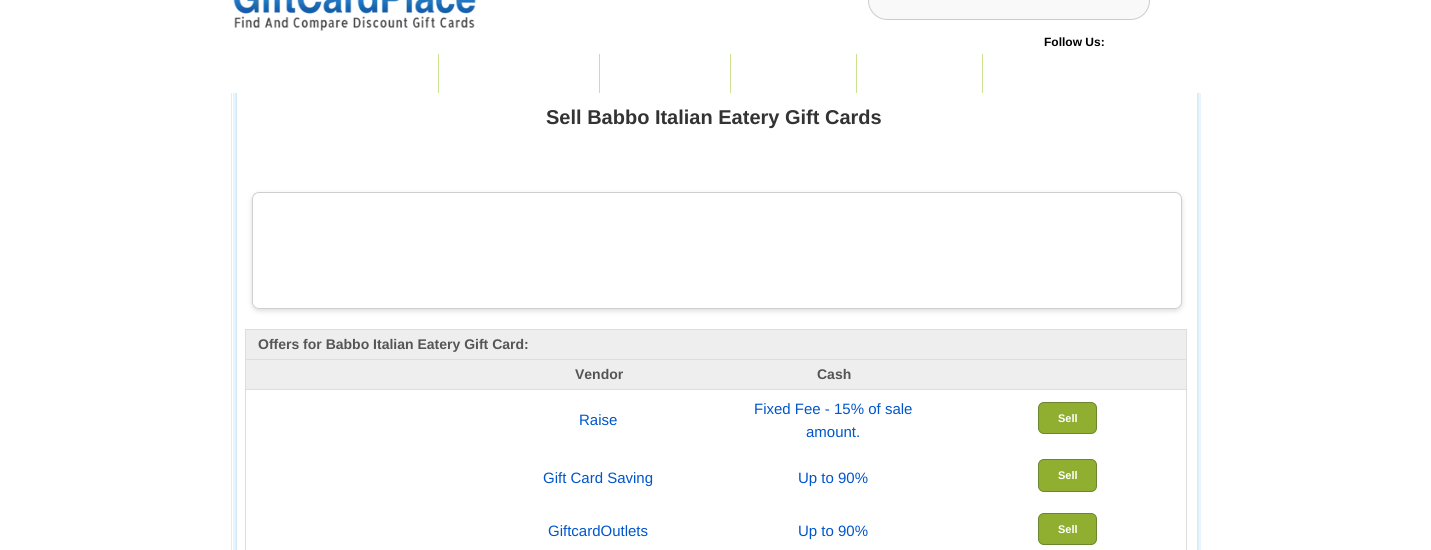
import math
import cairo


def round_path(ctx, x, y, w, h, r):
	ctx.new_sub_path()
	for i, (u, v) in enumerate([(x + w - r, y + h - r), (x + r, y + h - r), (x + r, y + r), (x + w - r, y + r)]):
		ctx.arc(u, v, r, i * math.pi / 2, (i + 1) * math.pi / 2)
	ctx.close_path()

def blur_box(ctx, x, y, w, h, r, blur, alpha):
	ctx.push_group_with_content(cairo.CONTENT_ALPHA)
	ctx.set_operator(cairo.OPERATOR_SOURCE)
	for i in range(15, -16, -2):
		e = blur * i / 6
		if min(w, h) + 2 * e > 0:
			ctx.set_source_rgba(0, 0, 0, alpha * math.erfc((i - 1) / 8.5) / 2)
			round_path(ctx, x - e, y - e, w + 2 * e, h + 2 * e, max(0, min(r + e + blur * .6, min(w, h) / 2 + e)))
			ctx.fill()
	ctx.mask(ctx.pop_group())

def paste(ctx, path, x, y, w, h):
	ctx.save()
	ctx.set_source_surface(cairo.ImageSurface.create_from_png(path), x, y)
	ctx.rectangle(x, y, w, h)
	ctx.fill()
	ctx.restore()

def draw(ctx):
	ctx.set_source_rgb(1, 1, 1)
	ctx.paint()
	paste(ctx, 'media/1.png', 233, 0, 243, 31)
	ctx.set_source_rgb(0.973, 0.973, 0.973)
	round_path(ctx, 868.5, -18.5, 281, 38, 19)
	ctx.fill_preserve()
	ctx.set_source_rgb(0.8, 0.8, 0.8)
	ctx.set_line_width(1)
	ctx.stroke()
	ctx.select_font_face('Liberation Sans', cairo.FONT_SLANT_NORMAL, cairo.FONT_WEIGHT_BOLD)
	ctx.set_font_size(12)
	ctx.set_source_rgb(0, 0, 0)
	ctx.move_to(1044, 46)
	ctx.show_text('Follow Us:')
	ctx.set_source_rgb(0.8, 0.886, 0.565)
	ctx.rectangle(438, 54, 1, 41)
	ctx.rectangle(599, 54, 1, 41)
	ctx.rectangle(730, 54, 1, 41)
	ctx.rectangle(856, 54, 1, 41)
	ctx.rectangle(982, 54, 1, 41)
	ctx.fill()
	paste(ctx, 'media/2.png', 231, 93, 970, 457)
	ctx.set_font_size(20)
	ctx.set_source_rgb(0.2, 0.2, 0.2)
	ctx.move_to(546, 124)
	ctx.show_text('Sell Babbo Italian Eatery Gift Cards')
	ctx.save()
	ctx.set_fill_rule(cairo.FILL_RULE_EVEN_ODD)
	ctx.new_path()
	ctx.move_to(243, 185)
	ctx.line_to(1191, 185)
	ctx.line_to(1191, 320)
	ctx.line_to(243, 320)
	ctx.close_path()
	ctx.move_to(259, 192)
	ctx.line_to(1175, 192)
	ctx.curve_to(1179, 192, 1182, 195, 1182, 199)
	ctx.line_to(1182, 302)
	ctx.curve_to(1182, 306, 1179, 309, 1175, 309)
	ctx.line_to(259, 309)
	ctx.curve_to(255, 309, 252, 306, 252, 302)
	ctx.line_to(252, 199)
	ctx.curve_to(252, 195, 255, 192, 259, 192)
	ctx.close_path()
	ctx.clip()
	ctx.set_source_rgb(0.867, 0.867, 0.867)
	blur_box(ctx, 252, 194, 930, 117, 7, 2.5, 1)
	ctx.restore()
	round_path(ctx, 252.5, 192.5, 929, 116, 6.5)
	ctx.set_source_rgb(0.812, 0.812, 0.812)
	ctx.stroke()
	ctx.set_source_rgb(0.867, 0.867, 0.867)
	ctx.rectangle(245, 329, 942, 1)
	ctx.rectangle(1186, 329, 1, 221)
	ctx.rectangle(245, 329, 1, 221)
	ctx.fill()
	ctx.set_source_rgb(0.933, 0.933, 0.933)
	ctx.rectangle(246, 330, 940, 29)
	ctx.fill()
	ctx.set_font_size(14)
	ctx.set_source_rgb(0.333, 0.333, 0.333)
	ctx.move_to(258, 349)
	ctx.show_text('Offers for Babbo Italian Eatery Gift Card:')
	ctx.set_source_rgb(0.867, 0.867, 0.867)
	ctx.rectangle(245, 359, 942, 1)
	ctx.rectangle(245, 389, 942, 1)
	ctx.fill()
	ctx.set_source_rgb(0.933, 0.933, 0.933)
	ctx.rectangle(246, 360, 940, 29)
	ctx.fill()
	ctx.set_source_rgb(0.333, 0.333, 0.333)
	ctx.move_to(575, 379)
	ctx.show_text('Vendor')
	ctx.move_to(817, 379)
	ctx.show_text('Cash')
	ctx.select_font_face('Liberation Sans')
	ctx.set_font_size(15)
	ctx.set_source_rgb(0, 0.333, 0.8)
	for x, y, s in [
		(579, 425, 'Raise'),
		(754, 414, 'Fixed Fee - 15% of sale'),
		(806, 437, 'amount.'),
	]:
		ctx.move_to(x, y)
		ctx.show_text(s)
	ctx.set_source_rgb(0.565, 0.686, 0.188)
	round_path(ctx, 1038.5, 402.5, 58, 31, 5.5)
	ctx.fill_preserve()
	ctx.set_source_rgb(0.416, 0.525, 0.184)
	ctx.stroke()
	ctx.select_font_face('Liberation Sans', cairo.FONT_SLANT_NORMAL, cairo.FONT_WEIGHT_BOLD)
	ctx.set_font_size(11)
	ctx.set_source_rgb(1, 1, 1)
	ctx.move_to(1058, 422)
	ctx.show_text('Sell')
	ctx.select_font_face('Liberation Sans')
	ctx.set_font_size(15)
	ctx.set_source_rgb(0, 0.333, 0.8)
	ctx.move_to(543, 483)
	ctx.show_text('Gift Card Saving')
	ctx.move_to(798, 483)
	ctx.show_text('Up to 90%')
	ctx.set_source_rgb(0.565, 0.686, 0.188)
	round_path(ctx, 1038.5, 459.5, 58, 32, 5.5)
	ctx.fill_preserve()
	ctx.set_source_rgb(0.416, 0.525, 0.184)
	ctx.stroke()
	ctx.select_font_face('Liberation Sans', cairo.FONT_SLANT_NORMAL, cairo.FONT_WEIGHT_BOLD)
	ctx.set_font_size(11)
	ctx.set_source_rgb(1, 1, 1)
	ctx.move_to(1058, 479)
	ctx.show_text('Sell')
	ctx.select_font_face('Liberation Sans')
	ctx.set_font_size(15)
	ctx.set_source_rgb(0, 0.333, 0.8)
	ctx.move_to(548, 536)
	ctx.show_text('GiftcardOutlets')
	ctx.move_to(798, 536)
	ctx.show_text('Up to 90%')
	ctx.set_source_rgb(0.565, 0.686, 0.188)
	round_path(ctx, 1038.5, 513.5, 58, 31, 5.5)
	ctx.fill_preserve()
	ctx.set_source_rgb(0.416, 0.525, 0.184)
	ctx.stroke()
	ctx.select_font_face('Liberation Sans', cairo.FONT_SLANT_NORMAL, cairo.FONT_WEIGHT_BOLD)
	ctx.set_font_size(11)
	ctx.set_source_rgb(1, 1, 1)
	ctx.move_to(1058, 533)
	ctx.show_text('Sell')


surface = cairo.ImageSurface(cairo.FORMAT_RGB24, 1431, 550)
ctx = cairo.Context(surface)
options = cairo.FontOptions()
options.set_hint_metrics(cairo.HINT_METRICS_OFF)
options.set_hint_style(cairo.HINT_STYLE_NONE)
ctx.set_font_options(options)
ctx.set_miter_limit(4)
draw(ctx)
surface.write_to_png('image.png')
